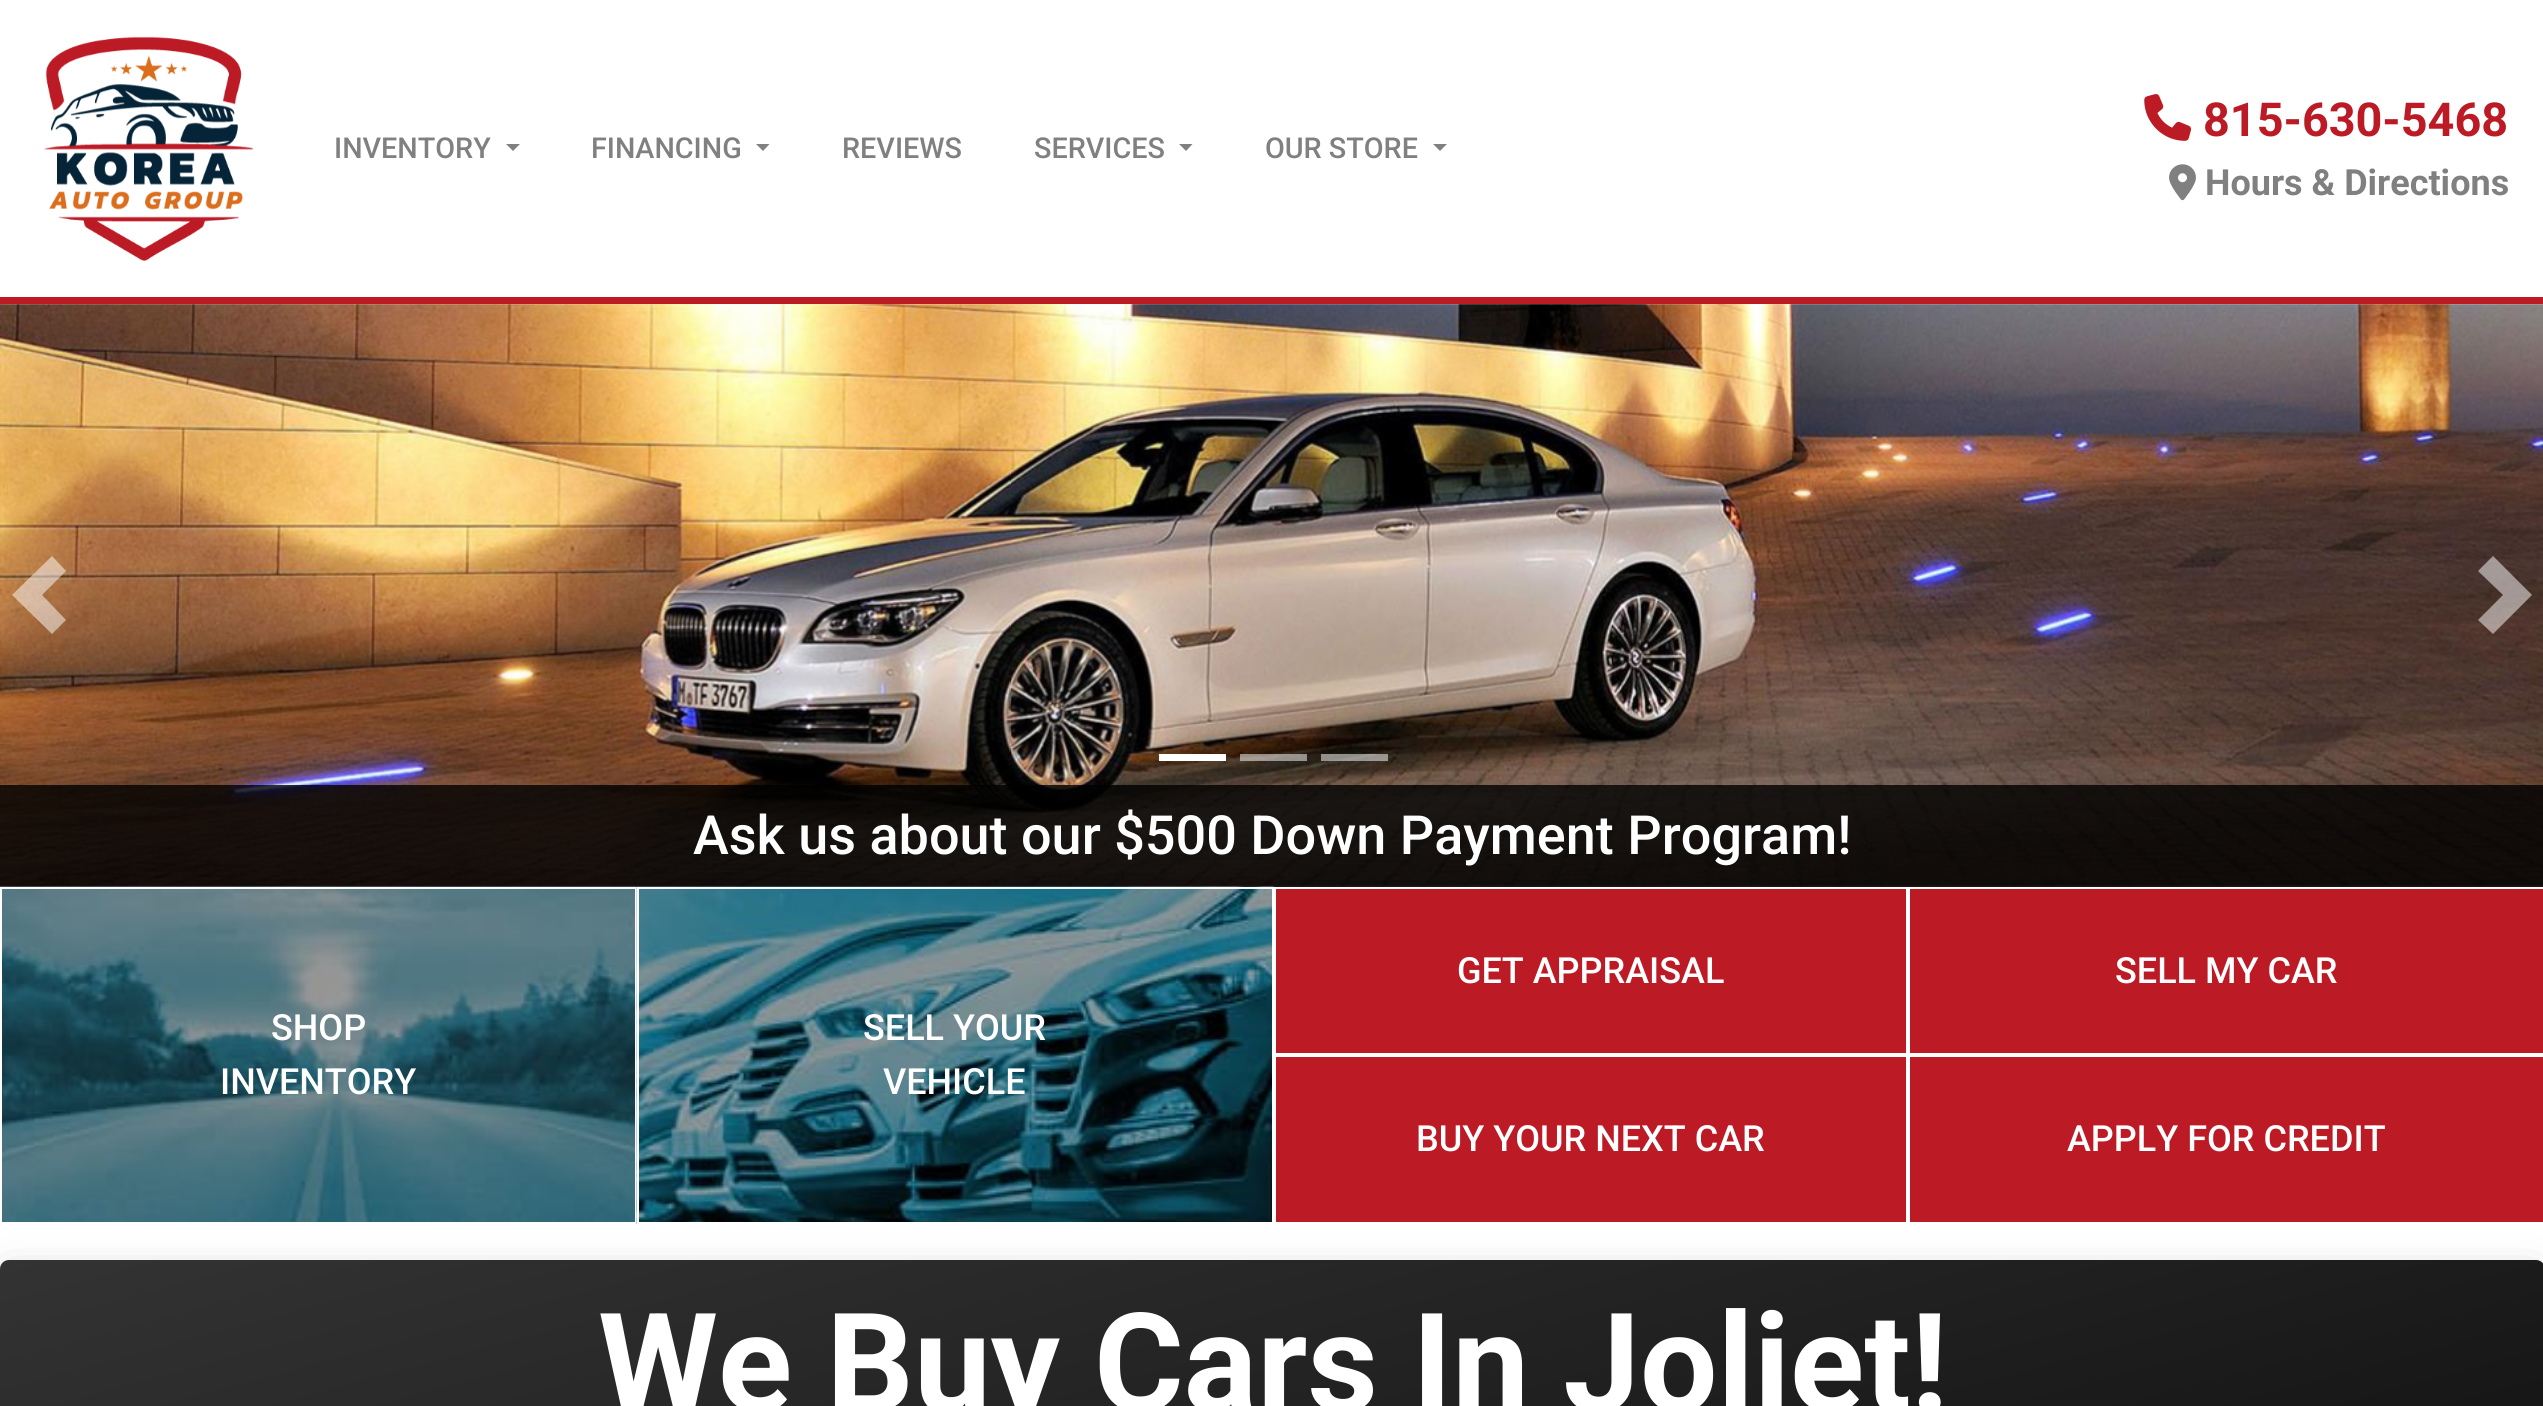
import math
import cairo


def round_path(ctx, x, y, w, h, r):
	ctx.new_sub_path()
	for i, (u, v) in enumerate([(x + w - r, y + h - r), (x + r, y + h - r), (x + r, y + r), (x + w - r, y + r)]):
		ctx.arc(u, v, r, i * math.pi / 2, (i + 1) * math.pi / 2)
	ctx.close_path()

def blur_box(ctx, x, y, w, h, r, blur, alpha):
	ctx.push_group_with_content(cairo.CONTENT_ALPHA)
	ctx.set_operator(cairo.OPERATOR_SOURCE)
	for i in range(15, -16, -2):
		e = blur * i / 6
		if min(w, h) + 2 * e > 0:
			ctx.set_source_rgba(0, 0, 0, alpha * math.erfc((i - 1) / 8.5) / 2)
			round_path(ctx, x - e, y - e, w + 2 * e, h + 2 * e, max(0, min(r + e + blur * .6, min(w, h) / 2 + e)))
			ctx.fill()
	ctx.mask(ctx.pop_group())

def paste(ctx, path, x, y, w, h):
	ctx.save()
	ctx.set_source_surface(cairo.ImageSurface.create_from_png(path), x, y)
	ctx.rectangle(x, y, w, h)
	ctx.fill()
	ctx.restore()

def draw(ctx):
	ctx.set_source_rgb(1, 1, 1)
	ctx.paint()
	ctx.set_source_rgb(0.737, 0.102, 0.145)
	ctx.rectangle(0, 297, 2543, 7)
	ctx.fill()
	paste(ctx, 'media/1.png', 44, 36, 209, 225)
	ctx.select_font_face('Roboto Medium')
	ctx.set_font_size(28.75)
	ctx.set_source_rgb(0.502, 0.502, 0.502)
	ctx.move_to(334, 158)
	ctx.show_text('INVENTORY')
	ctx.new_path()
	ctx.move_to(506, 144)
	ctx.line_to(520, 144)
	ctx.line_to(513, 151)
	ctx.close_path()
	ctx.fill()
	ctx.move_to(591, 158)
	ctx.show_text('FINANCING')
	ctx.new_path()
	ctx.move_to(756, 144)
	ctx.line_to(769.5, 144)
	ctx.line_to(763, 151)
	ctx.close_path()
	ctx.fill()
	ctx.move_to(842, 158)
	ctx.show_text('REVIEWS')
	ctx.move_to(1034, 158)
	ctx.show_text('SERVICES')
	ctx.new_path()
	ctx.move_to(1179, 144)
	ctx.line_to(1192.5, 144)
	ctx.line_to(1186, 151)
	ctx.close_path()
	ctx.fill()
	ctx.move_to(1265, 158)
	ctx.show_text('OUR STORE')
	ctx.new_path()
	ctx.move_to(1433, 144)
	ctx.line_to(1447, 144)
	ctx.line_to(1440, 151)
	ctx.close_path()
	ctx.fill()
	paste(ctx, 'media/2.png', 2144, 94, 47, 47)
	ctx.select_font_face('Roboto', cairo.FONT_SLANT_NORMAL, cairo.FONT_WEIGHT_BOLD)
	ctx.set_font_size(46.75)
	ctx.set_source_rgb(0.737, 0.102, 0.145)
	ctx.move_to(2203, 136)
	ctx.show_text('815-630-5468')
	paste(ctx, 'media/3.png', 2169, 164, 27, 37)
	ctx.set_font_size(36)
	ctx.set_source_rgb(0.502, 0.502, 0.502)
	ctx.move_to(2205, 195)
	ctx.show_text('Hours & Directions')
	paste(ctx, 'media/4.png', 0, 304, 2543, 583)
	ctx.set_source_rgba(1, 1, 1, 0.5)
	ctx.new_path()
	ctx.move_to(52, 556)
	ctx.line_to(12, 595)
	ctx.line_to(52, 634)
	ctx.line_to(66, 620)
	ctx.line_to(42, 595)
	ctx.line_to(66, 571)
	ctx.close_path()
	ctx.fill()
	ctx.new_path()
	ctx.move_to(2493, 556)
	ctx.line_to(2478, 571)
	ctx.line_to(2503, 595)
	ctx.line_to(2478, 620)
	ctx.line_to(2493, 634)
	ctx.line_to(2532, 595)
	ctx.close_path()
	ctx.fill()
	ctx.set_source_rgb(1, 1, 1)
	ctx.rectangle(1159, 754, 67, 7)
	ctx.fill()
	ctx.set_source_rgba(1, 1, 1, 0.5)
	ctx.rectangle(1240, 754, 67, 7)
	ctx.fill()
	ctx.rectangle(1321, 754, 67, 7)
	ctx.fill()
	ctx.set_source_rgba(0, 0, 0, 0.8)
	ctx.rectangle(0, 785, 2543, 102)
	ctx.fill()
	ctx.select_font_face('Roboto Medium')
	ctx.set_font_size(54)
	ctx.set_source_rgb(1, 1, 1)
	ctx.move_to(693, 854)
	ctx.show_text('Ask us about our $500 Down Payment Program!')
	ctx.set_source_rgb(0.737, 0.102, 0.145)
	ctx.rectangle(1276, 889, 1267, 333)
	ctx.fill()
	paste(ctx, 'media/5.png', 0, 886, 637, 336)
	ctx.rectangle(1, 888, 635, 335)
	ctx.set_source_rgb(1, 1, 1)
	ctx.stroke()
	ctx.set_font_size(36)
	ctx.move_to(271, 1040)
	ctx.show_text('SHOP')
	ctx.move_to(220, 1094)
	ctx.show_text('INVENTORY')
	paste(ctx, 'media/6.png', 636, 886, 638, 338)
	ctx.rectangle(638, 888, 635, 335)
	ctx.stroke()
	ctx.move_to(863, 1040)
	ctx.show_text('SELL YOUR')
	ctx.move_to(883, 1094)
	ctx.show_text('VEHICLE')
	ctx.rectangle(1275, 888, 632, 166)
	ctx.stroke()
	ctx.move_to(1457, 983)
	ctx.show_text('GET APPRAISAL')
	ctx.rectangle(1909, 888, 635, 166)
	ctx.stroke()
	ctx.move_to(2115, 983)
	ctx.show_text('SELL MY CAR')
	ctx.rectangle(1275, 1056, 632, 167)
	ctx.stroke()
	ctx.move_to(1416, 1151)
	ctx.show_text('BUY YOUR NEXT CAR')
	ctx.rectangle(1909, 1056, 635, 167)
	ctx.stroke()
	ctx.move_to(2067, 1151)
	ctx.show_text('APPLY FOR CREDIT')
	ctx.set_source_rgb(0, 0, 0)
	blur_box(ctx, 11, 1289, 2523, 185, 0, 22.5, 0.5)
	gradient = cairo.LinearGradient(1410, 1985, 1135, 956)
	gradient.add_color_stop_rgba(0, 0.051, 0.051, 0.051, 1)
	gradient.add_color_stop_rgba(1, 0.2, 0.2, 0.2, 1)
	ctx.set_source(gradient)
	round_path(ctx, 0, 1260, 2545, 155, 9)
	ctx.fill()
	ctx.select_font_face('Roboto', cairo.FONT_SLANT_NORMAL, cairo.FONT_WEIGHT_BOLD)
	ctx.set_font_size(137.25)
	ctx.set_source_rgb(1, 1, 1)
	ctx.move_to(598, 1411)
	ctx.show_text('We Buy Cars In Joliet!')


surface = cairo.ImageSurface(cairo.FORMAT_RGB24, 2543, 1406)
ctx = cairo.Context(surface)
options = cairo.FontOptions()
options.set_hint_metrics(cairo.HINT_METRICS_OFF)
options.set_hint_style(cairo.HINT_STYLE_NONE)
ctx.set_font_options(options)
ctx.set_miter_limit(4)
draw(ctx)
surface.write_to_png('image.png')
